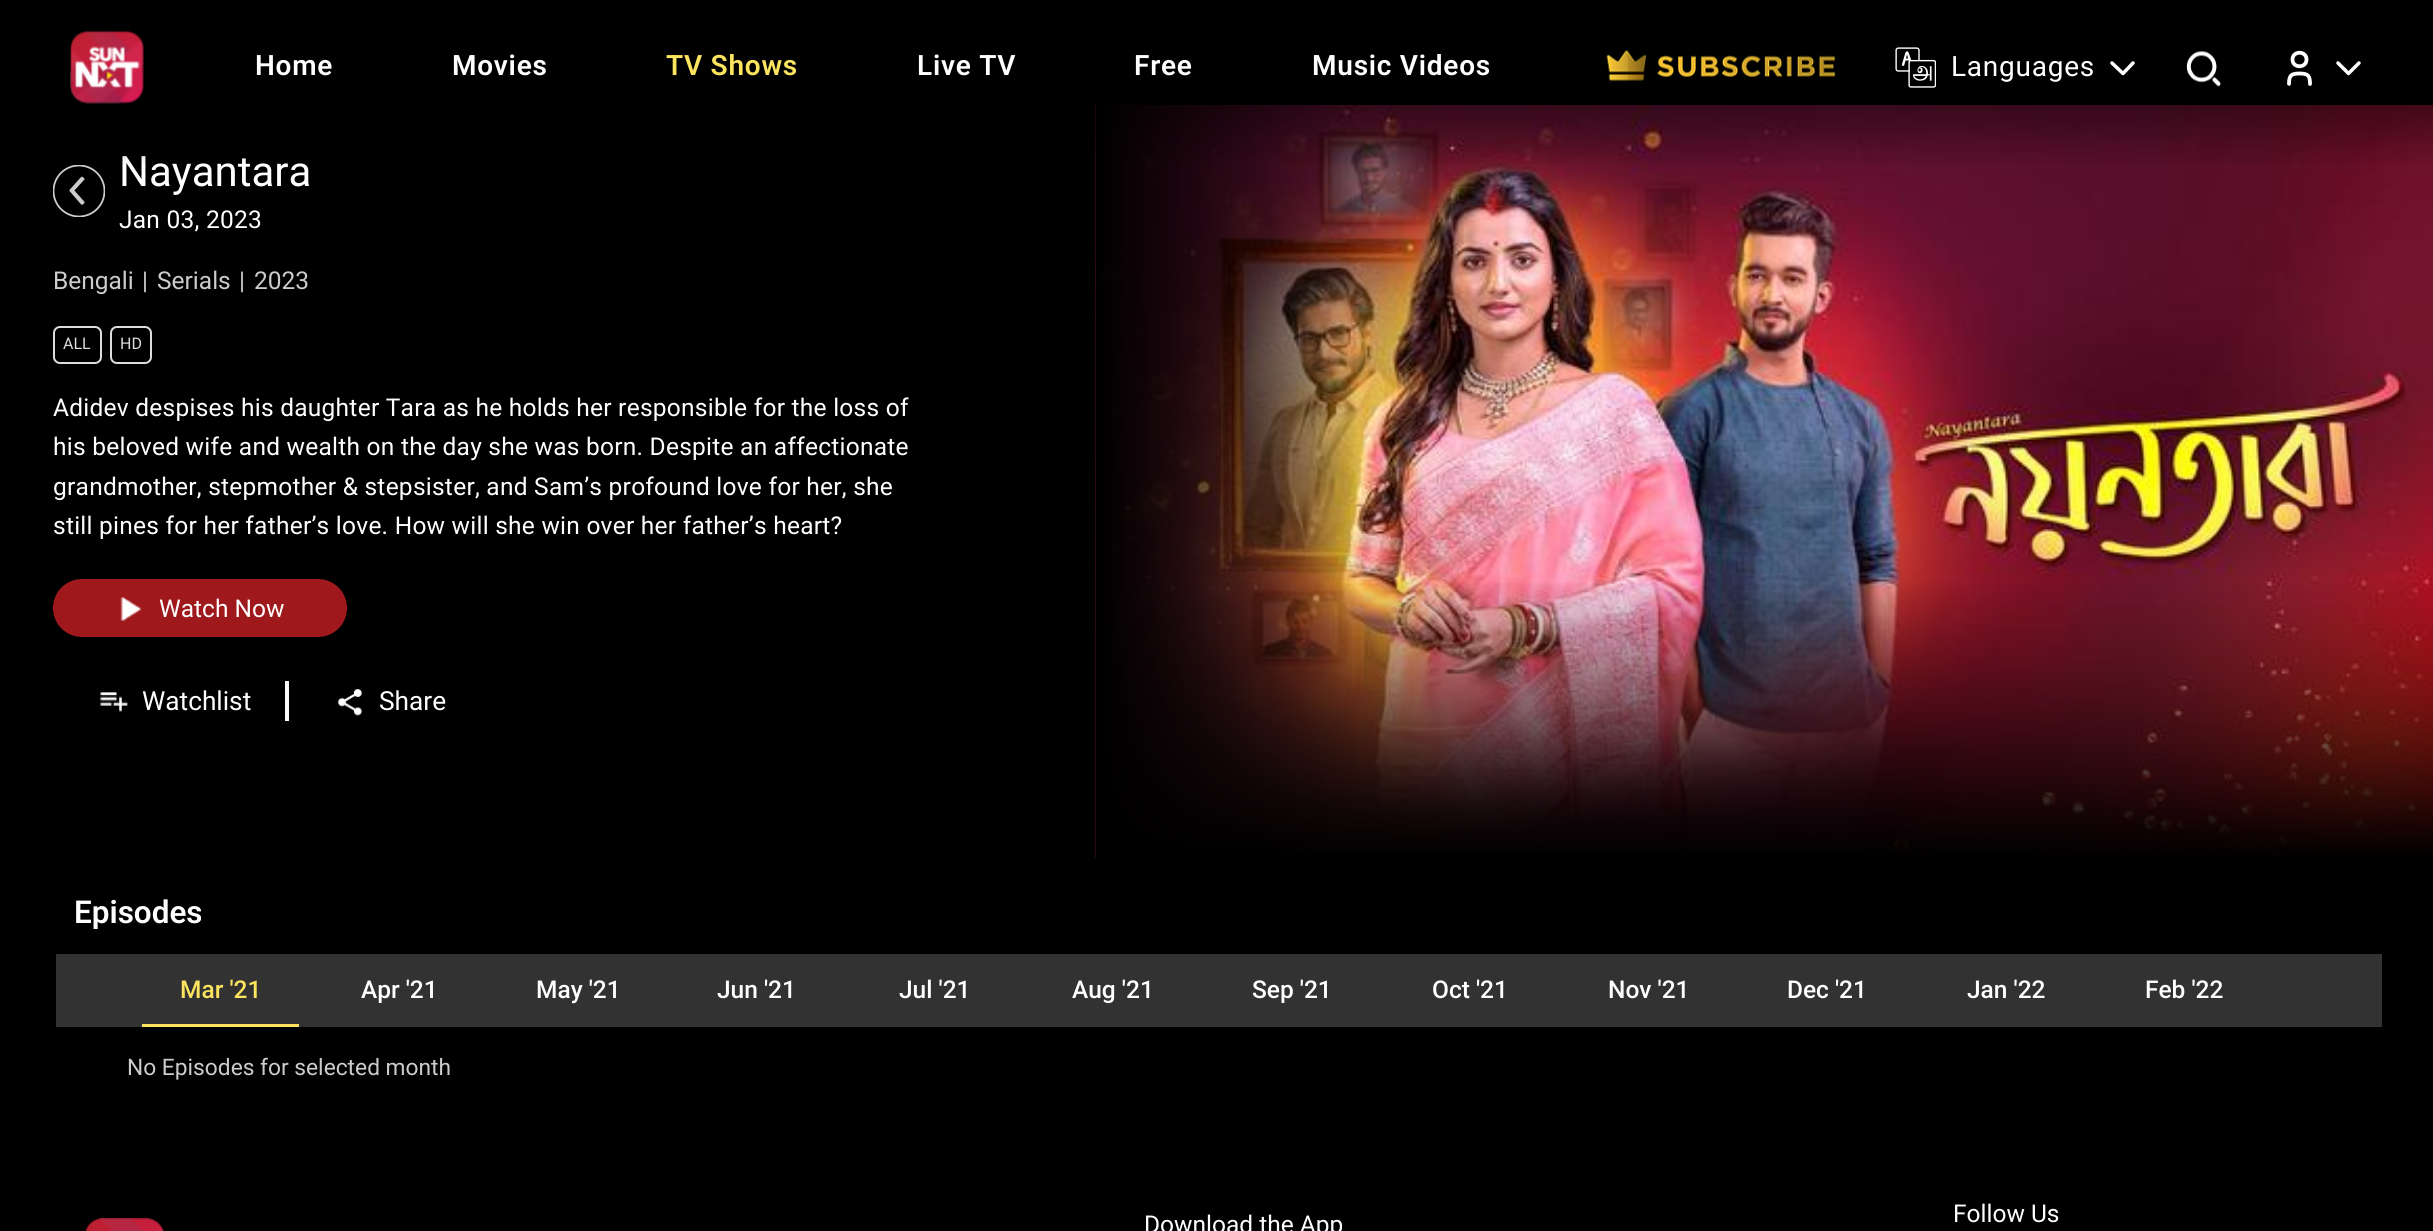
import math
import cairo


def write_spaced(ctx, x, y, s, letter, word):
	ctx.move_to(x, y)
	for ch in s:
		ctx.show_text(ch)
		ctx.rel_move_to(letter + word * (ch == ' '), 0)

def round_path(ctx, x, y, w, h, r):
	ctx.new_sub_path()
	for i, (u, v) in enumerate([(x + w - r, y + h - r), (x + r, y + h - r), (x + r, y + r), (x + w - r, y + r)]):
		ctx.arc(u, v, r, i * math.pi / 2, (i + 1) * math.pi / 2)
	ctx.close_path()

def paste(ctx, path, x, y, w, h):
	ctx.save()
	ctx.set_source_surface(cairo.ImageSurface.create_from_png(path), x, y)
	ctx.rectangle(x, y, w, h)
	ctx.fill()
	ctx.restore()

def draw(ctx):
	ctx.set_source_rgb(0, 0, 0)
	ctx.paint()
	ctx.select_font_face('Roboto')
	ctx.set_font_size(42)
	ctx.set_source_rgb(1, 1, 1)
	ctx.move_to(119, 186)
	ctx.show_text('Nayantara')
	paste(ctx, 'media/9.png', 1095, 105, 1338, 753)
	gradient = cairo.LinearGradient(1761, 481, 1096, 481)
	gradient.add_color_stop_rgba(0.6, 0, 0, 0, 0)
	gradient.add_color_stop_rgba(1, 0, 0, 0, 1)
	ctx.set_source(gradient)
	ctx.rectangle(1096, 105, 260, 751)
	ctx.fill()
	gradient = cairo.LinearGradient(1217, 0, 1217, 168)
	gradient.add_color_stop_rgba(0, 0, 0, 0, 0.9)
	gradient.add_color_stop_rgba(0.5, 0, 0, 0, 0.5)
	gradient.add_color_stop_rgba(1, 0, 0, 0, 0)
	ctx.set_source(gradient)
	ctx.rectangle(122, 105, 2311, 59)
	ctx.fill()
	paste(ctx, 'media/1.png', 70, 30, 74, 74)
	ctx.select_font_face('Roboto SemiBold')
	ctx.set_font_size(28)
	ctx.set_source_rgb(1, 1, 1)
	write_spaced(ctx, 255, 75, 'Home', 0.75, 0)
	write_spaced(ctx, 452, 75, 'Movies', 0.75, 0)
	ctx.set_source_rgb(0.988, 0.894, 0.369)
	write_spaced(ctx, 666, 75, 'TV Shows', 0.75, 0)
	ctx.set_source_rgb(1, 1, 1)
	for x, y, s in [
		(917, 75, 'Live TV'),
		(1134, 75, 'Free'),
		(1312, 75, 'Music Videos'),
	]:
		write_spaced(ctx, x, y, s, 0.75, 0)
	paste(ctx, 'media/2.png', 1606, 50, 230, 34)
	paste(ctx, 'media/3.png', 1895, 47, 41, 41)
	ctx.select_font_face('Roboto')
	write_spaced(ctx, 1951, 76, 'Languages', 0.75, 0)
	ctx.new_path()
	ctx.move_to(2112, 63)
	ctx.line_to(2123, 73.5)
	ctx.line_to(2133, 63)
	ctx.set_line_width(3.5)
	ctx.set_line_cap(cairo.LINE_CAP_ROUND)
	ctx.set_line_join(cairo.LINE_JOIN_ROUND)
	ctx.stroke()
	paste(ctx, 'media/4.png', 2186, 51, 35, 36)
	ctx.new_path()
	ctx.move_to(2292.5, 59.5)
	ctx.curve_to(2292.5, 68.5, 2306.5, 68.5, 2306.5, 59.5)
	ctx.curve_to(2306.5, 50.5, 2292.5, 50.5, 2292.5, 59.5)
	ctx.close_path()
	ctx.set_line_width(3.8)
	ctx.stroke()
	ctx.save()
	round_path(ctx, 2279, 47, 42, 42, 21)
	ctx.clip()
	ctx.new_path()
	ctx.move_to(2289, 84)
	ctx.curve_to(2289, 75.5, 2291, 73.5, 2299.5, 73.5)
	ctx.curve_to(2308, 73.5, 2310, 75.5, 2310, 84)
	ctx.stroke()
	ctx.restore()
	ctx.new_path()
	ctx.move_to(2338, 63)
	ctx.line_to(2348.5, 73.5)
	ctx.line_to(2359, 63)
	ctx.set_line_width(3.5)
	ctx.stroke()
	paste(ctx, 'media/5.png', 53, 165, 52, 52)
	ctx.set_font_size(24.5)
	write_spaced(ctx, 119, 228, 'Jan 03, 2023', 0.25, 0)
	ctx.set_source_rgb(0.8, 0.8, 0.8)
	for x, y, s in [
		(53, 289, 'Bengali'),
		(142, 289, '|'),
		(157, 289, 'Serials'),
		(239, 289, '|'),
		(254, 289, '2023'),
	]:
		ctx.move_to(x, y)
		ctx.show_text(s)
	round_path(ctx, 54, 327, 47, 36, 6)
	ctx.set_source_rgb(0.867, 0.867, 0.867)
	ctx.set_line_width(2)
	ctx.set_line_cap(cairo.LINE_CAP_BUTT)
	ctx.set_line_join(cairo.LINE_JOIN_MITER)
	ctx.stroke()
	ctx.set_font_size(16)
	ctx.move_to(63, 349)
	ctx.show_text('ALL')
	round_path(ctx, 111, 327, 40, 36, 6)
	ctx.stroke()
	ctx.move_to(120, 349)
	ctx.show_text('HD')
	ctx.set_font_size(24.5)
	ctx.set_source_rgb(1, 1, 1)
	for x, y, s in [
		(53, 416, 'Adidev despises his daughter Tara as he holds her responsible for the loss of'),
		(53, 455, 'his beloved wife and wealth on the day she was born. Despite an affectionate'),
		(53, 495, 'grandmother, stepmother & stepsister, and Sam’s profound love for her, she'),
		(53, 534, 'still pines for her father’s love. How will she win over her father’s heart?'),
	]:
		write_spaced(ctx, x, y, s, 0.25, 0)
	ctx.set_source_rgb(0.624, 0.094, 0.106)
	round_path(ctx, 53, 579, 294, 58, 29)
	ctx.fill()
	paste(ctx, 'media/6.png', 120, 597, 22, 24)
	ctx.set_source_rgb(1, 1, 1)
	ctx.move_to(159, 617)
	ctx.show_text('Watch Now')
	ctx.rectangle(285, 681, 4, 40)
	ctx.fill()
	paste(ctx, 'media/7.png', 100, 692, 28, 20)
	ctx.set_font_size(26.25)
	ctx.move_to(142, 710)
	ctx.show_text('Watchlist')
	paste(ctx, 'media/8.png', 337, 689, 25, 27)
	ctx.move_to(379, 710)
	ctx.show_text('Share')
	gradient = cairo.LinearGradient(1765, 577, 1765, 858)
	gradient.add_color_stop_rgba(0, 0, 0, 0, 0)
	gradient.add_color_stop_rgba(1, 0, 0, 0, 1)
	ctx.set_source(gradient)
	ctx.rectangle(1096, 583, 1337, 275)
	ctx.fill()
	ctx.save()
	ctx.rectangle(74, 893, 127, 36)
	ctx.clip()
	ctx.select_font_face('Roboto SemiBold')
	ctx.set_font_size(31.5)
	ctx.set_source_rgb(1, 1, 1)
	ctx.move_to(74, 923)
	ctx.show_text('Episodes')
	ctx.restore()
	ctx.set_source_rgb(0.196, 0.196, 0.196)
	ctx.rectangle(56, 954, 2326, 73)
	ctx.fill()
	ctx.set_source_rgb(0.988, 0.894, 0.369)
	ctx.rectangle(142, 1024, 157, 3)
	ctx.fill()
	ctx.select_font_face('Roboto Medium')
	ctx.set_font_size(24.5)
	ctx.move_to(180, 998)
	ctx.show_text('Mar \'21')
	ctx.set_source_rgb(1, 1, 1)
	for x, y, s in [
		(361, 998, 'Apr \'21'),
		(536, 998, 'May \'21'),
		(717, 998, 'Jun \'21'),
		(899, 998, 'Jul \'21'),
		(1072, 998, 'Aug \'21'),
		(1252, 998, 'Sep \'21'),
		(1432, 998, 'Oct \'21'),
		(1608, 998, 'Nov \'21'),
		(1787, 998, 'Dec \'21'),
		(1967, 998, 'Jan \'22'),
		(2145, 998, 'Feb \'22'),
	]:
		ctx.move_to(x, y)
		ctx.show_text(s)
	ctx.select_font_face('Roboto')
	ctx.set_font_size(22.75)
	ctx.set_source_rgb(0.8, 0.8, 0.8)
	ctx.move_to(127, 1075)
	ctx.show_text('No Episodes for selected month')
	paste(ctx, 'media/10.png', 85, 1218, 79, 13)
	ctx.set_font_size(24.5)
	ctx.set_source_rgb(1, 1, 1)
	ctx.move_to(1144, 1233)
	ctx.show_text('Download the App')
	ctx.move_to(1953, 1222)
	ctx.show_text('Follow Us')


surface = cairo.ImageSurface(cairo.FORMAT_RGB24, 2433, 1231)
ctx = cairo.Context(surface)
options = cairo.FontOptions()
options.set_hint_metrics(cairo.HINT_METRICS_OFF)
options.set_hint_style(cairo.HINT_STYLE_NONE)
ctx.set_font_options(options)
ctx.set_miter_limit(4)
draw(ctx)
surface.write_to_png('image.png')
